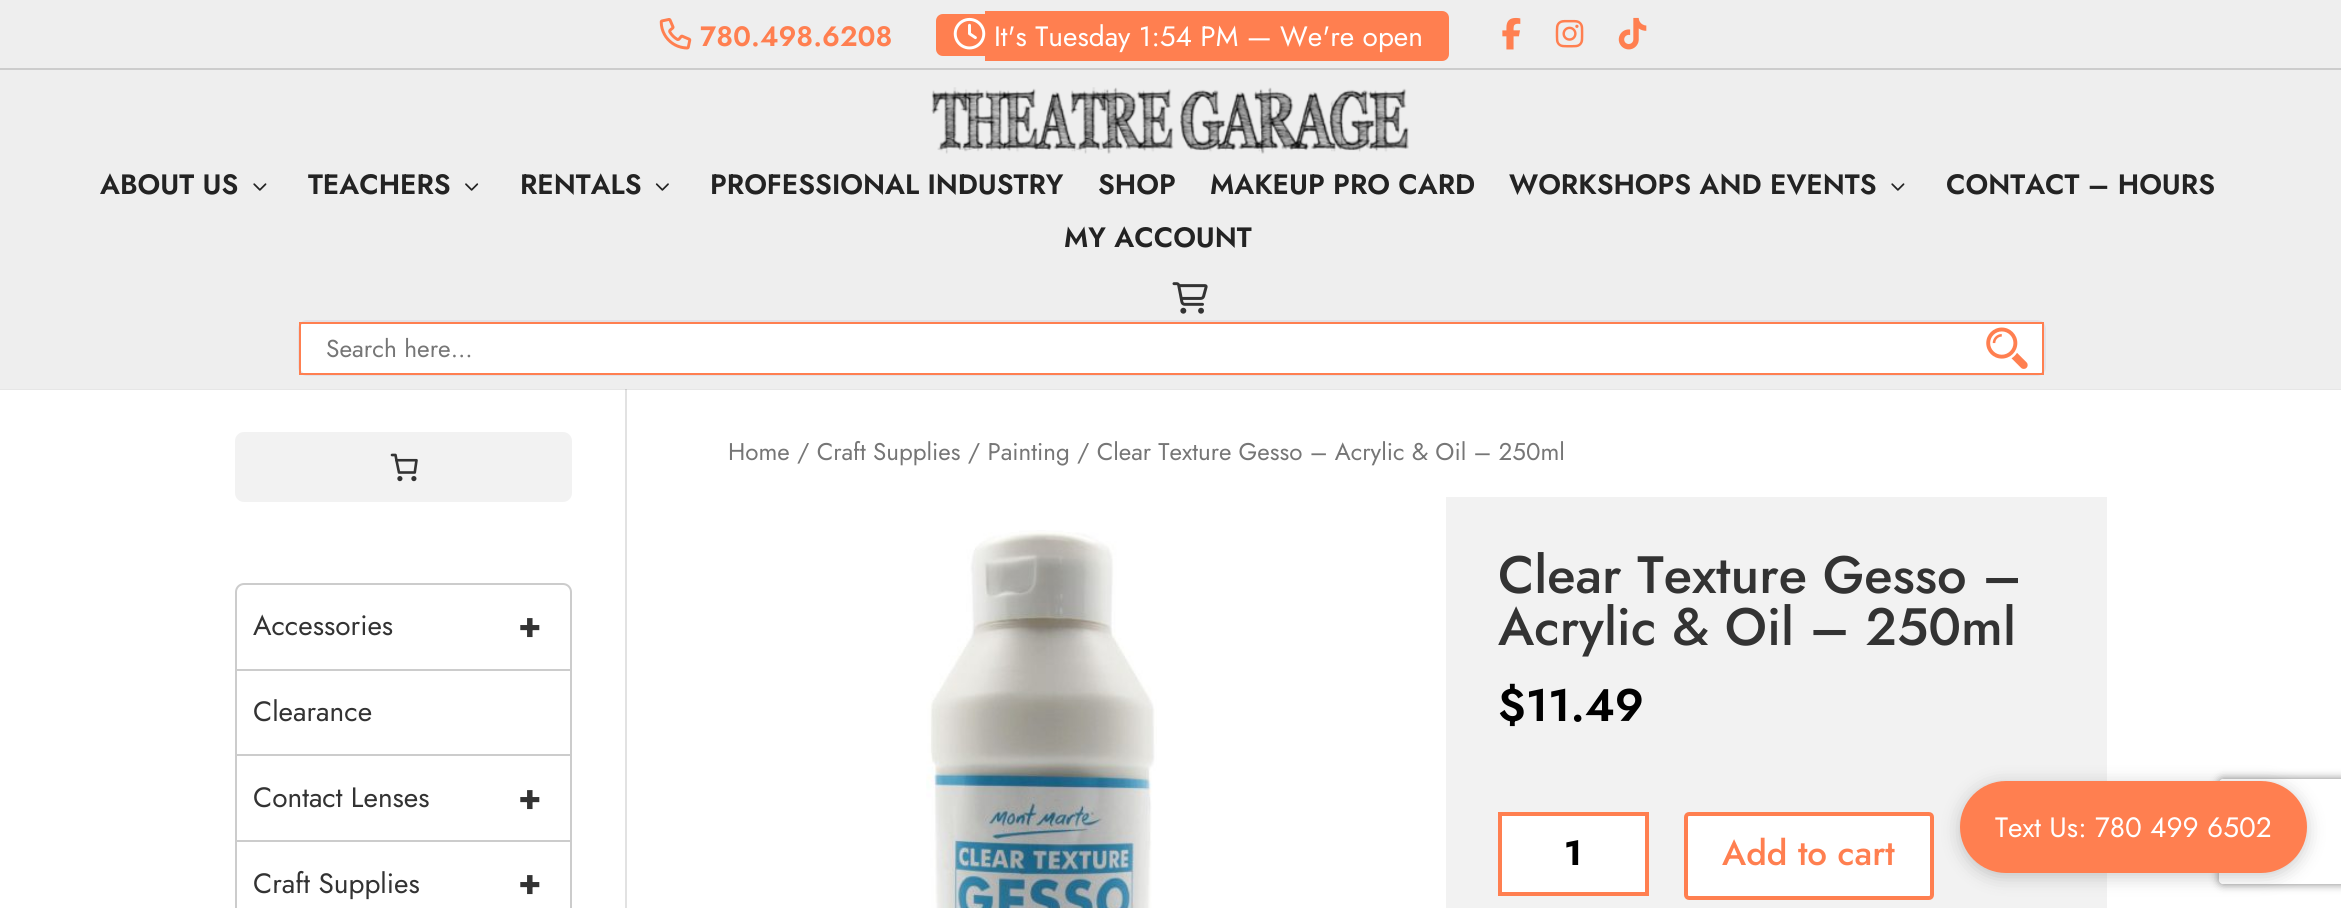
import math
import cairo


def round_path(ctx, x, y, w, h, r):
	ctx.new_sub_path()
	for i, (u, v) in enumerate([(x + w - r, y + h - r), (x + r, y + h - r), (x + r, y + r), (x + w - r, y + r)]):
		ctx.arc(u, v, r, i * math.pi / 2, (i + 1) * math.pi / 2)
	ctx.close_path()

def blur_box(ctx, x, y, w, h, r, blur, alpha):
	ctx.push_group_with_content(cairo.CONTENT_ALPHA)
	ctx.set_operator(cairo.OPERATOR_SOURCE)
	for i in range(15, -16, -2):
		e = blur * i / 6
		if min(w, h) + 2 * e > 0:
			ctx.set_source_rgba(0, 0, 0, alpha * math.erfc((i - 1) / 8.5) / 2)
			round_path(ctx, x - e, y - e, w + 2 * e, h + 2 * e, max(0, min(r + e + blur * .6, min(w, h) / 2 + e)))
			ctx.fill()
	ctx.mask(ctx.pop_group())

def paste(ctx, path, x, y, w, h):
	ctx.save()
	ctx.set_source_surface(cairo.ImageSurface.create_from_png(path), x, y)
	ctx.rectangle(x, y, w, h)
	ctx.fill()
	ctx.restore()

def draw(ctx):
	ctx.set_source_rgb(1, 1, 1)
	ctx.paint()
	ctx.set_source_rgb(0.933, 0.933, 0.933)
	ctx.rectangle(0, 0, 2341, 68)
	ctx.fill()
	ctx.set_source_rgb(0.8, 0.8, 0.8)
	ctx.rectangle(0, 68, 2341, 2)
	ctx.fill()
	paste(ctx, 'media/1.png', 659, 18, 33, 32)
	ctx.select_font_face('Jost SemiBold')
	ctx.set_font_size(28)
	ctx.set_source_rgb(1, 0.498, 0.314)
	ctx.move_to(700, 46)
	ctx.show_text('780.498.6208')
	ctx.new_path()
	ctx.move_to(943, 14)
	ctx.line_to(985, 14)
	ctx.line_to(985, 56)
	ctx.line_to(943, 56)
	ctx.curve_to(939, 56, 936, 53, 936, 49)
	ctx.line_to(936, 21)
	ctx.curve_to(936, 17, 939, 14, 943, 14)
	ctx.close_path()
	ctx.fill()
	ctx.rectangle(985, 11, 438, 50)
	ctx.fill()
	ctx.new_path()
	ctx.move_to(1423, 11)
	ctx.line_to(1442, 11)
	ctx.curve_to(1446, 11, 1449, 14, 1449, 18)
	ctx.line_to(1449, 54)
	ctx.curve_to(1449, 58, 1446, 61, 1442, 61)
	ctx.line_to(1423, 61)
	ctx.close_path()
	ctx.fill()
	paste(ctx, 'media/2.png', 953, 17, 33, 33)
	ctx.select_font_face('Jost')
	ctx.set_source_rgb(1, 1, 1)
	ctx.move_to(994, 46)
	ctx.show_text('It\'s Tuesday 1:54 PM — We\'re open')
	paste(ctx, 'media/3.png', 1502, 17, 19, 33)
	paste(ctx, 'media/4.png', 1555, 19, 29, 29)
	paste(ctx, 'media/5.png', 1618, 17, 29, 33)
	ctx.set_source_rgb(0.886, 0.886, 0.886)
	ctx.rectangle(625, 389, 2, 519)
	ctx.fill()
	ctx.set_source_rgba(0, 0, 0, 0.1)
	ctx.new_path()
	ctx.move_to(0, 388)
	ctx.line_to(0, 390)
	ctx.line_to(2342, 390)
	ctx.line_to(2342, 70)
	ctx.line_to(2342, 388)
	ctx.close_path()
	ctx.fill()
	ctx.set_source_rgb(0.933, 0.933, 0.933)
	ctx.rectangle(0, 70, 2341, 319)
	ctx.fill()
	paste(ctx, 'media/6.png', 931, 87, 478, 67)
	ctx.select_font_face('Jost SemiBold')
	ctx.set_source_rgb(0.137, 0.137, 0.137)
	ctx.move_to(100, 194)
	ctx.show_text('ABOUT US')
	paste(ctx, 'media/7.png', 253, 183, 14, 8)
	ctx.move_to(308, 194)
	ctx.show_text('TEACHERS')
	paste(ctx, 'media/8.png', 465, 183, 14, 8)
	ctx.move_to(520, 194)
	ctx.show_text('RENTALS')
	paste(ctx, 'media/9.png', 655, 183, 14, 8)
	for x, y, s in [
		(710, 194, 'PROFESSIONAL INDUSTRY'),
		(1098, 194, 'SHOP'),
		(1210, 194, 'MAKEUP PRO CARD'),
		(1509, 194, 'WORKSHOPS AND EVENTS'),
	]:
		ctx.move_to(x, y)
		ctx.show_text(s)
	paste(ctx, 'media/7.png', 1891, 183, 14, 8)
	ctx.move_to(1946, 194)
	ctx.show_text('CONTACT – HOURS')
	ctx.move_to(1064, 247)
	ctx.show_text('MY ACCOUNT')
	paste(ctx, 'media/10.png', 1172, 282, 36, 32)
	ctx.set_source_rgb(1, 1, 1)
	round_path(ctx, 299, 321, 1746, 54, 8)
	ctx.fill_preserve()
	ctx.set_source_rgb(0.886, 0.882, 0.902)
	ctx.stroke()
	ctx.rectangle(300, 323, 1743, 51)
	ctx.set_source_rgb(1, 0.498, 0.314)
	ctx.stroke()
	ctx.select_font_face('Jost')
	ctx.set_font_size(24.5)
	ctx.set_source_rgb(0.463, 0.463, 0.463)
	ctx.move_to(326, 357)
	ctx.show_text('Search here...')
	paste(ctx, 'media/11.png', 1986, 327, 42, 42)
	ctx.set_source_rgb(0.949, 0.949, 0.949)
	round_path(ctx, 235, 432, 337, 70, 9)
	ctx.fill()
	paste(ctx, 'media/12.png', 390, 453, 28, 29)
	round_path(ctx, 236, 584, 335, 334, 8)
	ctx.set_source_rgb(0.8, 0.8, 0.8)
	ctx.stroke()
	ctx.rectangle(236, 669, 335, 2)
	ctx.fill()
	ctx.set_font_size(28)
	ctx.set_source_rgb(0.2, 0.2, 0.2)
	ctx.move_to(253, 635)
	ctx.show_text('Accessories')
	ctx.select_font_face('Jost', cairo.FONT_SLANT_NORMAL, cairo.FONT_WEIGHT_BOLD)
	ctx.set_font_size(35)
	ctx.move_to(518, 637)
	ctx.show_text('+')
	ctx.set_source_rgb(0.8, 0.8, 0.8)
	ctx.rectangle(236, 754, 335, 2)
	ctx.fill()
	ctx.select_font_face('Jost')
	ctx.set_font_size(28)
	ctx.set_source_rgb(0.2, 0.2, 0.2)
	ctx.move_to(253, 721)
	ctx.show_text('Clearance')
	ctx.set_source_rgb(0.8, 0.8, 0.8)
	ctx.rectangle(236, 840, 335, 2)
	ctx.fill()
	ctx.set_source_rgb(0.2, 0.2, 0.2)
	ctx.move_to(253, 807)
	ctx.show_text('Contact Lenses')
	ctx.select_font_face('Jost', cairo.FONT_SLANT_NORMAL, cairo.FONT_WEIGHT_BOLD)
	ctx.set_font_size(35)
	ctx.move_to(518, 809)
	ctx.show_text('+')
	ctx.select_font_face('Jost')
	ctx.set_font_size(28)
	ctx.move_to(253, 893)
	ctx.show_text('Craft Supplies')
	ctx.select_font_face('Jost', cairo.FONT_SLANT_NORMAL, cairo.FONT_WEIGHT_BOLD)
	ctx.set_font_size(35)
	ctx.move_to(518, 894)
	ctx.show_text('+')
	ctx.select_font_face('Jost')
	ctx.set_font_size(24.15)
	ctx.set_source_rgb(0.463, 0.463, 0.463)
	ctx.move_to(728, 460)
	ctx.show_text('Home / Craft Supplies / Painting / Clear Texture Gesso – Acrylic & Oil – 250ml')
	paste(ctx, 'media/13.png', 926, 530, 231, 378)
	ctx.set_source_rgb(0.949, 0.949, 0.949)
	ctx.rectangle(1446, 497, 661, 411)
	ctx.fill()
	ctx.select_font_face('Jost Medium')
	ctx.set_font_size(52.5)
	ctx.set_source_rgb(0.2, 0.2, 0.2)
	ctx.move_to(1498, 593)
	ctx.show_text('Clear Texture Gesso –')
	ctx.move_to(1498, 645)
	ctx.show_text('Acrylic & Oil – 250ml')
	ctx.select_font_face('Jost SemiBold')
	ctx.set_font_size(45.5)
	ctx.set_source_rgb(0, 0, 0)
	ctx.move_to(1498, 721)
	ctx.show_text('$11.49')
	ctx.set_source_rgb(1, 1, 1)
	ctx.rectangle(1500, 814, 147, 80)
	ctx.fill_preserve()
	ctx.set_source_rgb(1, 0.498, 0.314)
	ctx.set_line_width(4)
	ctx.stroke()
	ctx.select_font_face('Jost', cairo.FONT_SLANT_NORMAL, cairo.FONT_WEIGHT_BOLD)
	ctx.set_font_size(35)
	ctx.set_source_rgb(0, 0, 0)
	ctx.move_to(1564, 865)
	ctx.show_text('1')
	ctx.set_source_rgb(1, 1, 1)
	round_path(ctx, 1686, 814, 246, 84, 3)
	ctx.fill_preserve()
	ctx.set_source_rgb(1, 0.498, 0.314)
	ctx.stroke()
	ctx.select_font_face('Jost Medium')
	ctx.move_to(1722, 865)
	ctx.show_text('Add to cart')
	ctx.set_source_rgb(0, 0, 0)
	blur_box(ctx, 1960, 784, 347, 93, 46.5, 9, 0.2)
	ctx.save()
	ctx.set_fill_rule(cairo.FILL_RULE_EVEN_ODD)
	ctx.new_path()
	ctx.move_to(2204, 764)
	ctx.line_to(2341, 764)
	ctx.line_to(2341, 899)
	ctx.line_to(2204, 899)
	ctx.close_path()
	ctx.move_to(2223, 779)
	ctx.line_to(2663, 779)
	ctx.curve_to(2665, 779, 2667, 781, 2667, 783)
	ctx.line_to(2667, 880)
	ctx.curve_to(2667, 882, 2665, 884, 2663, 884)
	ctx.line_to(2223, 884)
	ctx.curve_to(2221, 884, 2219, 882, 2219, 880)
	ctx.line_to(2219, 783)
	ctx.curve_to(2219, 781, 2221, 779, 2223, 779)
	ctx.close_path()
	ctx.clip()
	ctx.set_source_rgb(0.502, 0.502, 0.502)
	blur_box(ctx, 2219, 779, 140, 105, 4, 4.5, 1)
	ctx.restore()
	ctx.set_source_rgb(1, 0.498, 0.314)
	round_path(ctx, 1960, 781, 347, 92, 46)
	ctx.fill()
	ctx.select_font_face('Jost')
	ctx.set_font_size(28)
	ctx.set_source_rgb(1, 1, 1)
	ctx.move_to(1995, 837)
	ctx.show_text('Text Us: 780 499 6502')


surface = cairo.ImageSurface(cairo.FORMAT_RGB24, 2341, 908)
ctx = cairo.Context(surface)
options = cairo.FontOptions()
options.set_hint_metrics(cairo.HINT_METRICS_OFF)
options.set_hint_style(cairo.HINT_STYLE_NONE)
ctx.set_font_options(options)
ctx.set_miter_limit(4)
draw(ctx)
surface.write_to_png('image.png')
